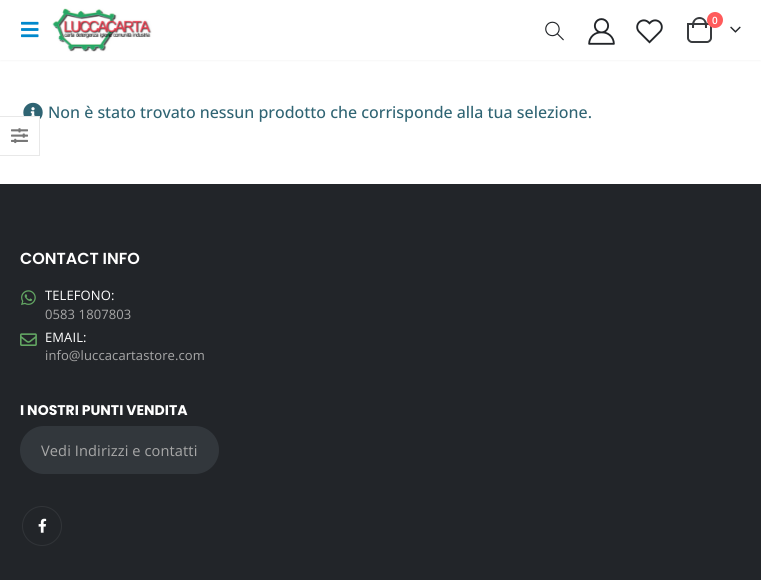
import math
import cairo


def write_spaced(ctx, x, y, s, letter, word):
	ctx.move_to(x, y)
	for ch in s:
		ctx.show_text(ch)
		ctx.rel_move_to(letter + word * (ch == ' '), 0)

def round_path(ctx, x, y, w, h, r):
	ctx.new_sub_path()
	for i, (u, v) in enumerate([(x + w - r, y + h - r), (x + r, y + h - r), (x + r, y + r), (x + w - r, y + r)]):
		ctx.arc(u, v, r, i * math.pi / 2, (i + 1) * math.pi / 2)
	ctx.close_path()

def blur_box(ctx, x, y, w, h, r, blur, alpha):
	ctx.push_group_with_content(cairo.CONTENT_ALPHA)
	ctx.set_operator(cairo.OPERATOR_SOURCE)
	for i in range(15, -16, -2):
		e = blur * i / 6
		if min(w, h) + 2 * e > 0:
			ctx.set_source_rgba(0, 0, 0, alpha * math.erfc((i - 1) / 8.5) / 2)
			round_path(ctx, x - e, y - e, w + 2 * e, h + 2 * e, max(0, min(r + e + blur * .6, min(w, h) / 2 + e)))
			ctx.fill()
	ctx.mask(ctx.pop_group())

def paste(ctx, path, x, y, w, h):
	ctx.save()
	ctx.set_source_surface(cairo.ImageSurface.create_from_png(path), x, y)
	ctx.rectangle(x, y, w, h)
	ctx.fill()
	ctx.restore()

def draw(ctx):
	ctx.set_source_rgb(1, 1, 1)
	ctx.paint()
	ctx.set_source_rgb(0, 0, 0)
	blur_box(ctx, 0, 0, 761, 60, 0, 1.5, 0.06)
	ctx.set_source_rgb(1, 1, 1)
	ctx.rectangle(0, 0, 761, 60)
	ctx.fill()
	paste(ctx, 'media/1.png', 21, 21, 18, 17)
	paste(ctx, 'media/2.png', 52, 8, 100, 44)
	paste(ctx, 'media/3.png', 545, 21, 19, 20)
	paste(ctx, 'media/4.png', 588, 18, 27, 27)
	paste(ctx, 'media/5.png', 636, 19, 27, 25)
	ctx.new_path()
	ctx.move_to(688, 24)
	ctx.line_to(711, 24)
	ctx.line_to(711, 38)
	ctx.curve_to(711, 40, 709, 42, 707, 42)
	ctx.line_to(692, 42)
	ctx.curve_to(690, 42, 688, 40, 688, 38)
	ctx.close_path()
	ctx.set_source_rgb(0.22, 0.231, 0.243)
	ctx.stroke()
	ctx.set_fill_rule(cairo.FILL_RULE_EVEN_ODD)
	ctx.new_path()
	ctx.move_to(699.5, 17)
	ctx.curve_to(703.5, 17, 707, 20.5, 707, 24.5)
	ctx.line_to(707, 28)
	ctx.line_to(692, 28)
	ctx.line_to(692, 24.5)
	ctx.curve_to(692, 20.5, 695.5, 17, 699.5, 17)
	ctx.close_path()
	ctx.move_to(699.5, 19)
	ctx.curve_to(705, 19, 705, 24, 705, 28)
	ctx.line_to(694, 28)
	ctx.curve_to(694, 24, 694, 19, 699.5, 19)
	ctx.close_path()
	ctx.fill()
	ctx.set_source_rgb(1, 0.357, 0.357)
	ctx.arc(715, 20, 8, 0, 2 * math.pi)
	ctx.fill()
	ctx.select_font_face('Open Sans SemiBold')
	ctx.set_font_size(10)
	ctx.set_source_rgb(1, 1, 1)
	ctx.move_to(712, 24)
	ctx.show_text('0')
	paste(ctx, 'media/6.png', 730, 26, 11, 7)
	paste(ctx, 'media/7.png', 23, 102, 20, 17)
	ctx.select_font_face('Open Sans Medium')
	ctx.set_font_size(16)
	ctx.set_source_rgb(0.184, 0.392, 0.451)
	ctx.move_to(48, 118)
	ctx.show_text('Non è stato trovato nessun prodotto che corrisponde alla tua selezione.')
	ctx.set_source_rgb(1, 1, 1)
	ctx.rectangle(24, 116, 16, 3)
	ctx.fill()
	ctx.set_source_rgb(0.91, 0.91, 0.91)
	ctx.set_fill_rule(cairo.FILL_RULE_WINDING)
	ctx.new_path()
	ctx.move_to(0, 116)
	ctx.line_to(40, 116)
	ctx.line_to(39, 117)
	ctx.line_to(0, 117)
	ctx.close_path()
	ctx.fill()
	ctx.set_source_rgba(0, 0, 0, 0.09)
	ctx.new_path()
	ctx.move_to(40, 116)
	ctx.line_to(40, 156)
	ctx.line_to(39, 155)
	ctx.line_to(39, 117)
	ctx.close_path()
	ctx.fill()
	ctx.new_path()
	ctx.move_to(40, 156)
	ctx.line_to(0, 156)
	ctx.line_to(0, 155)
	ctx.line_to(39, 155)
	ctx.close_path()
	ctx.fill()
	paste(ctx, 'media/8.png', 11, 128, 17, 16)
	ctx.set_source_rgb(0.133, 0.145, 0.161)
	ctx.rectangle(0, 184, 761, 396)
	ctx.fill()
	ctx.select_font_face('Poppins SemiBold')
	ctx.set_source_rgb(1, 1, 1)
	ctx.move_to(20, 264)
	ctx.show_text('CONTACT INFO')
	paste(ctx, 'media/9.png', 21, 290, 15, 15)
	ctx.select_font_face('Open Sans')
	ctx.set_font_size(13)
	write_spaced(ctx, 45, 300, 'TELEFONO:', 0.1, 0)
	ctx.set_source_rgb(0.659, 0.659, 0.659)
	write_spaced(ctx, 45, 319, '0583 1807803', 0.1, 0)
	paste(ctx, 'media/10.png', 20, 333, 17, 13)
	ctx.set_source_rgb(1, 1, 1)
	write_spaced(ctx, 45, 342, 'EMAIL:', 0.1, 0)
	ctx.set_source_rgb(0.659, 0.659, 0.659)
	write_spaced(ctx, 45, 360, 'info@luccacartastore.com', 0.1, 0)
	ctx.select_font_face('Poppins', cairo.FONT_SLANT_NORMAL, cairo.FONT_WEIGHT_BOLD)
	ctx.set_font_size(14)
	ctx.set_source_rgb(1, 1, 1)
	ctx.move_to(20, 415)
	ctx.show_text('I NOSTRI PUNTI VENDITA')
	ctx.set_source_rgb(0.196, 0.216, 0.235)
	round_path(ctx, 20, 426, 199, 48, 24)
	ctx.fill()
	ctx.select_font_face('Open Sans')
	ctx.set_font_size(14.6)
	ctx.set_source_rgb(0.659, 0.659, 0.659)
	write_spaced(ctx, 41, 456, 'Vedi Indirizzi e contatti', 0.1, 0)
	ctx.new_path()
	ctx.arc(42, 526, 19.5, 0, 2 * math.pi)
	ctx.set_source_rgb(0.192, 0.204, 0.22)
	ctx.set_line_width(1)
	ctx.stroke()
	paste(ctx, 'media/11.png', 38, 518, 9, 15)


surface = cairo.ImageSurface(cairo.FORMAT_RGB24, 761, 580)
ctx = cairo.Context(surface)
options = cairo.FontOptions()
options.set_hint_metrics(cairo.HINT_METRICS_OFF)
options.set_hint_style(cairo.HINT_STYLE_NONE)
ctx.set_font_options(options)
ctx.set_miter_limit(4)
draw(ctx)
surface.write_to_png('image.png')
